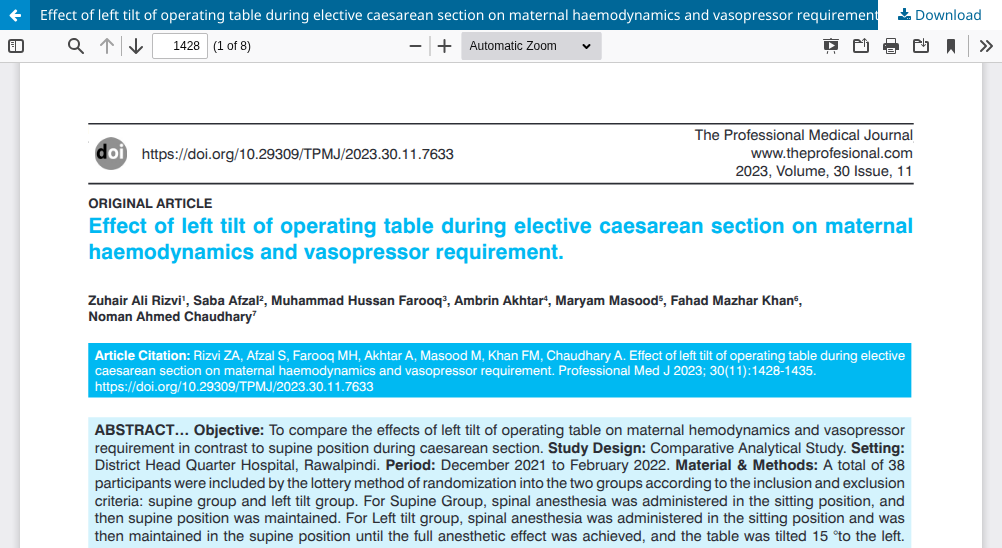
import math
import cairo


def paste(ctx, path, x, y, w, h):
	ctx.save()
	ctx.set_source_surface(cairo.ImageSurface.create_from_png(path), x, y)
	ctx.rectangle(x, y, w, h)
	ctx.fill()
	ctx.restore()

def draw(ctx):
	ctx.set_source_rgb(1, 1, 1)
	ctx.paint()
	ctx.set_source_rgb(0, 0.404, 0.596)
	ctx.rectangle(30, 0, 848, 30)
	ctx.fill()
	ctx.set_source_rgb(0, 0.541, 0.796)
	ctx.rectangle(0, 0, 30, 30)
	ctx.fill()
	paste(ctx, 'media/1.png', 9, 9, 12, 13)
	ctx.select_font_face('Noto Sans')
	ctx.set_font_size(14)
	ctx.set_source_rgb(1, 1, 1)
	ctx.move_to(40, 20)
	ctx.show_text('Effect of left tilt of operating table during elective caesarean section on maternal haemodynamics and vasopressor requirement')
	paste(ctx, 'media/2.png', 898, 8, 13, 12)
	ctx.set_source_rgb(0, 0.404, 0.596)
	ctx.move_to(915, 20)
	ctx.show_text('Download')
	paste(ctx, 'media/3.png', 0, 30, 1002, 518)


surface = cairo.ImageSurface(cairo.FORMAT_RGB24, 1002, 548)
ctx = cairo.Context(surface)
options = cairo.FontOptions()
options.set_hint_metrics(cairo.HINT_METRICS_OFF)
options.set_hint_style(cairo.HINT_STYLE_NONE)
ctx.set_font_options(options)
ctx.set_miter_limit(4)
draw(ctx)
surface.write_to_png('image.png')
